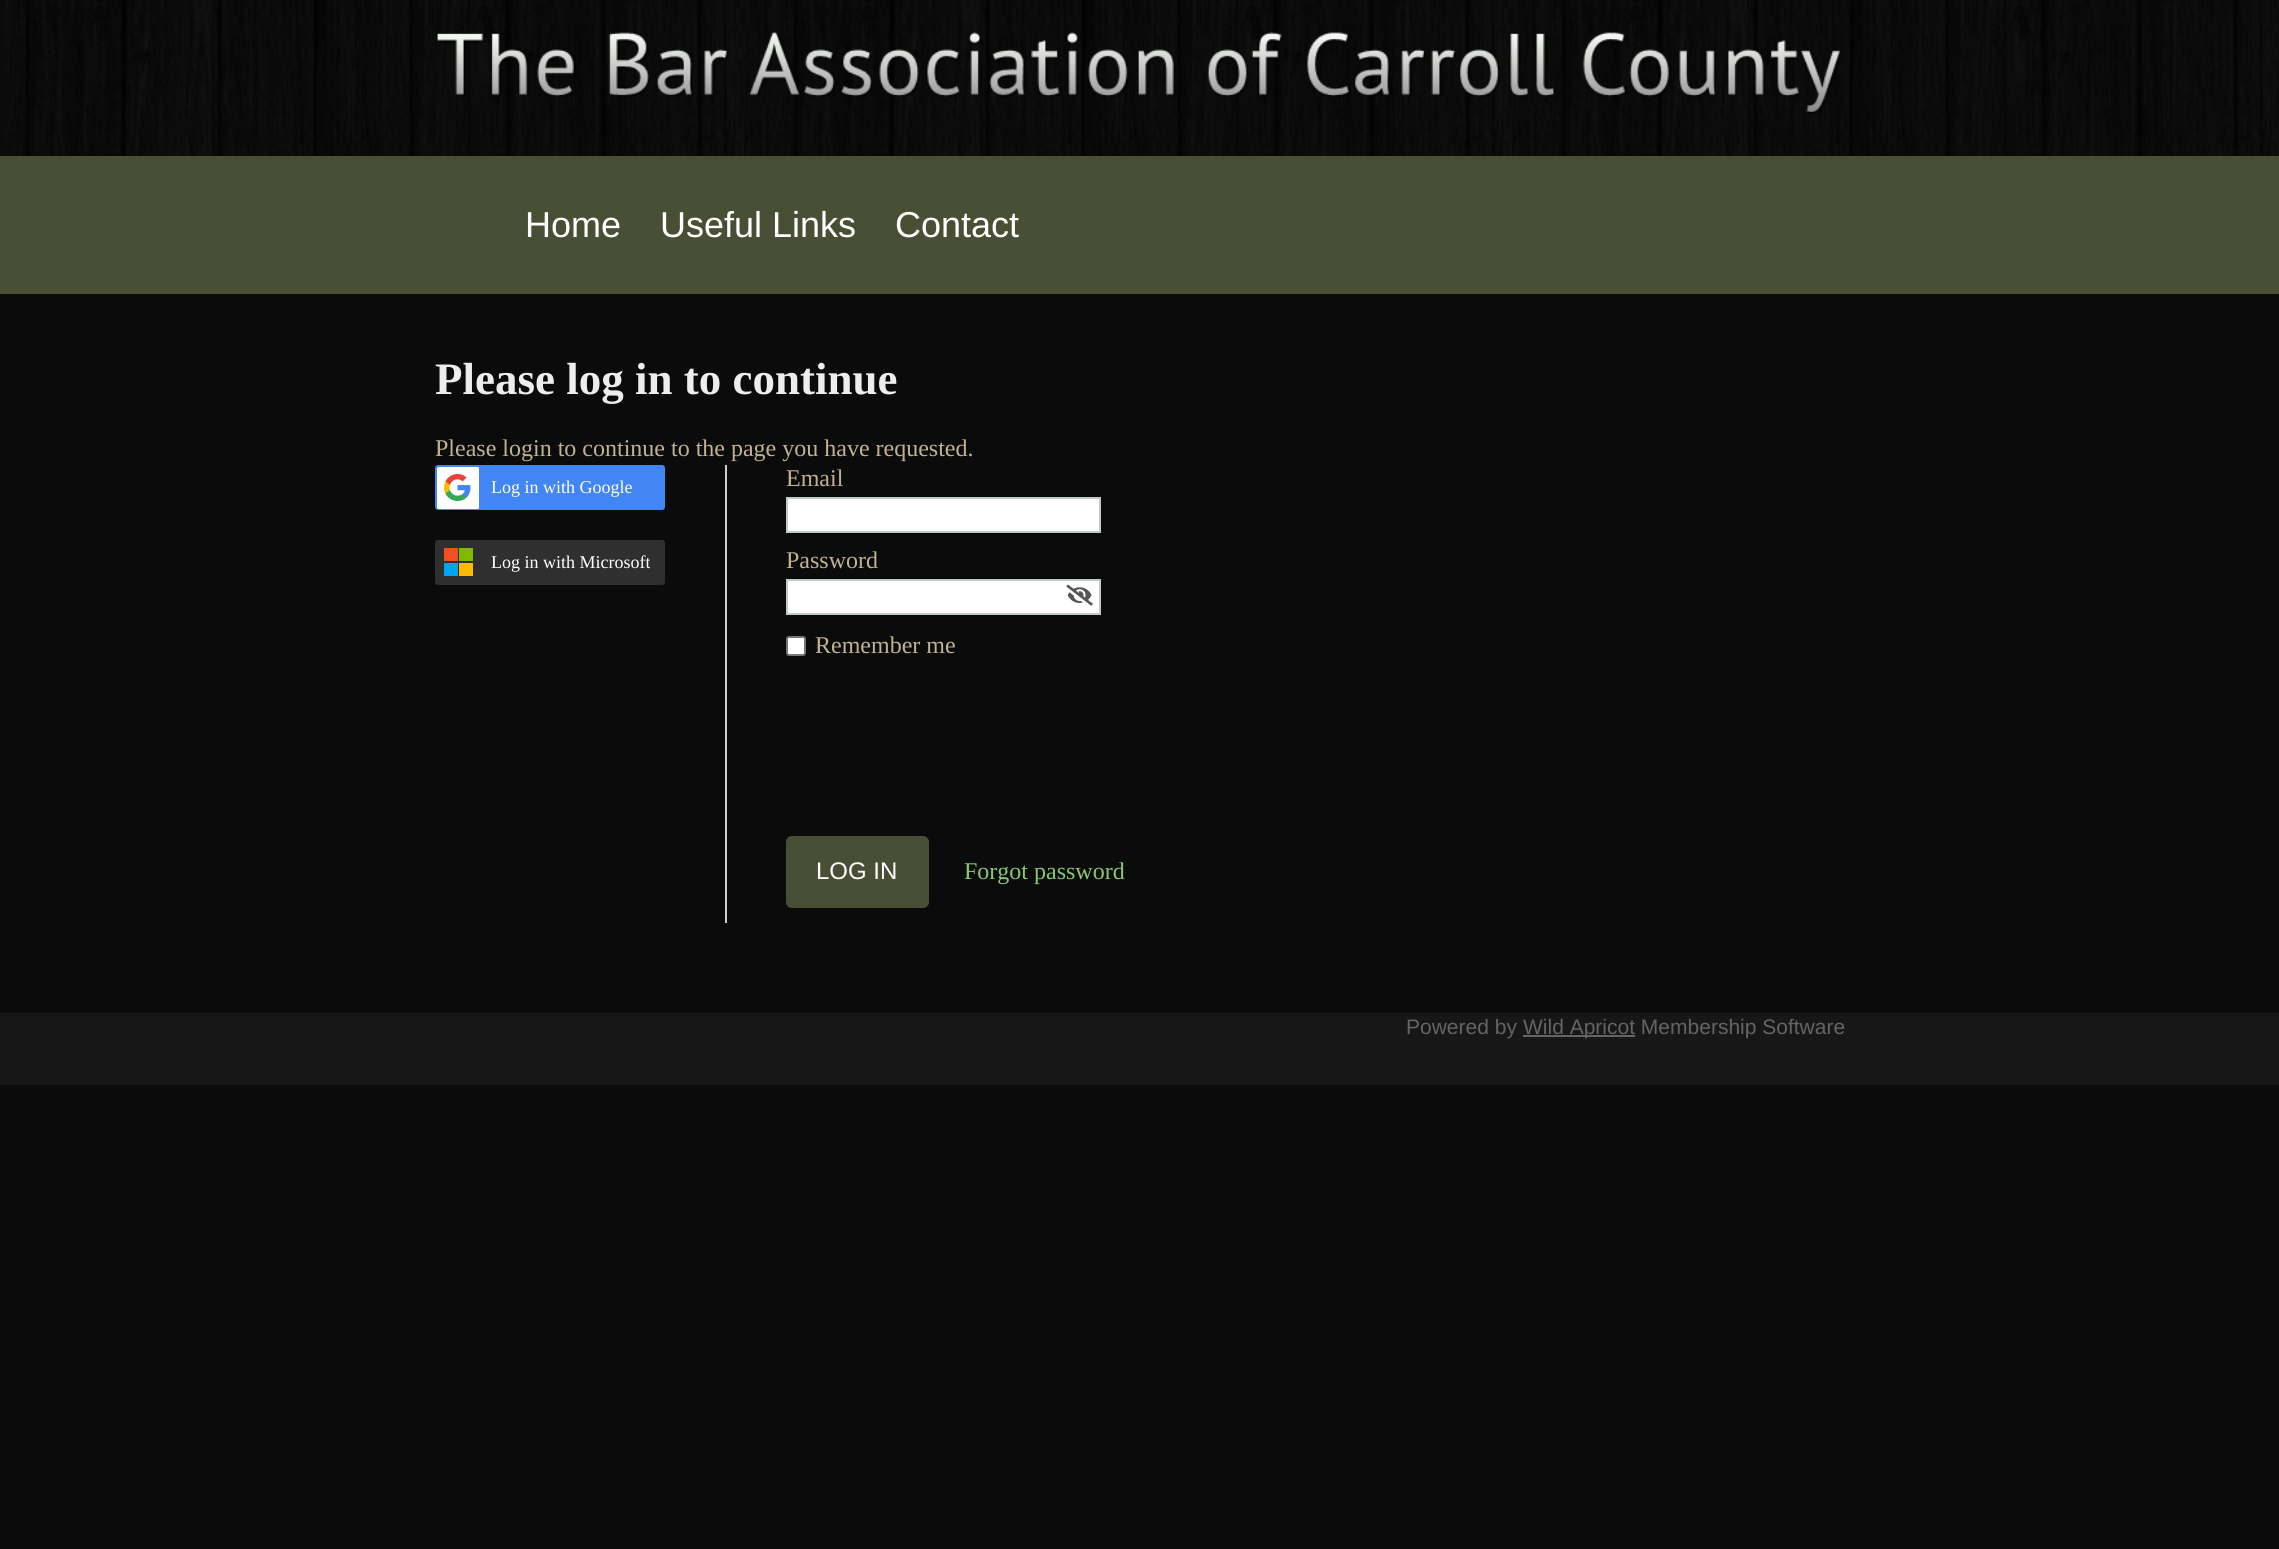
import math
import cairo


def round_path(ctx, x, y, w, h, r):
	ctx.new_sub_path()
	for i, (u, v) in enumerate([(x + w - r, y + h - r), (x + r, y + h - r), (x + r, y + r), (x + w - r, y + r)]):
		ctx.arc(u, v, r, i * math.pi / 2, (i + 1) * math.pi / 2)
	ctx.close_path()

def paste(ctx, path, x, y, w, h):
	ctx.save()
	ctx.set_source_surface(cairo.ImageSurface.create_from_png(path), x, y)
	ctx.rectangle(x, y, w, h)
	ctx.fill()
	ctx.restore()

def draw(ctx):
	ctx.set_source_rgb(0.047, 0.043, 0.043)
	ctx.paint()
	paste(ctx, 'media/1.png', 5, 0, 2274, 156)
	paste(ctx, 'media/2.png', 437, 32, 1404, 82)
	ctx.set_source_rgb(0.282, 0.31, 0.208)
	ctx.rectangle(0, 156, 2279, 138)
	ctx.fill()
	ctx.select_font_face('Liberation Sans')
	ctx.set_font_size(36)
	ctx.set_source_rgb(1, 1, 1)
	for x, y, s in [
		(525, 237, 'Home'),
		(660, 237, 'Useful Links'),
		(895, 237, 'Contact'),
	]:
		ctx.move_to(x, y)
		ctx.show_text(s)
	ctx.select_font_face('Liberation Serif', cairo.FONT_SLANT_NORMAL, cairo.FONT_WEIGHT_BOLD)
	ctx.set_font_size(45)
	ctx.set_source_rgb(0.929, 0.929, 0.929)
	ctx.move_to(435, 394)
	ctx.show_text('Please log in to continue')
	ctx.select_font_face('Liberation Serif')
	ctx.set_font_size(24)
	ctx.set_source_rgb(0.757, 0.698, 0.576)
	ctx.move_to(435, 456)
	ctx.show_text('Please login to continue to the page you have requested.')
	ctx.set_source_rgb(0.804, 0.804, 0.804)
	ctx.rectangle(725, 465, 2, 458)
	ctx.fill()
	ctx.set_source_rgb(0.259, 0.522, 0.957)
	round_path(ctx, 436, 466, 228, 43, 2)
	ctx.fill_preserve()
	ctx.stroke()
	paste(ctx, 'media/3.png', 437, 467, 42, 42)
	ctx.set_font_size(18)
	ctx.set_source_rgb(1, 1, 1)
	ctx.move_to(491, 493)
	ctx.show_text('Log in with Google')
	ctx.set_source_rgb(0.184, 0.184, 0.184)
	round_path(ctx, 436, 541, 228, 43, 2)
	ctx.fill_preserve()
	ctx.stroke()
	ctx.set_source_rgb(0.949, 0.314, 0.133)
	ctx.rectangle(444, 548, 14, 13)
	ctx.fill()
	ctx.set_source_rgb(0, 0.643, 0.937)
	ctx.rectangle(444, 563, 14, 13)
	ctx.fill()
	ctx.set_source_rgb(0.498, 0.729, 0)
	ctx.rectangle(459, 548, 14, 13)
	ctx.fill()
	ctx.set_source_rgb(1, 0.725, 0)
	ctx.rectangle(459, 563, 14, 13)
	ctx.fill()
	ctx.set_source_rgb(1, 1, 1)
	ctx.move_to(491, 568)
	ctx.show_text('Log in with Microsoft')
	ctx.set_font_size(24)
	ctx.set_source_rgb(0.757, 0.698, 0.576)
	ctx.move_to(786, 486)
	ctx.show_text('Email')
	ctx.set_source_rgb(1, 1, 1)
	ctx.rectangle(787, 498, 313, 34)
	ctx.fill_preserve()
	ctx.set_source_rgb(0.757, 0.796, 0.8)
	ctx.stroke()
	ctx.set_source_rgb(0.757, 0.698, 0.576)
	ctx.move_to(786, 568)
	ctx.show_text('Password')
	ctx.set_source_rgb(1, 1, 1)
	ctx.rectangle(787, 580, 313, 34)
	ctx.fill_preserve()
	ctx.set_source_rgb(0.757, 0.796, 0.8)
	ctx.stroke()
	paste(ctx, 'media/4.png', 1066, 584, 27, 22)
	ctx.set_source_rgb(1, 1, 1)
	round_path(ctx, 787, 637, 18, 18, 2)
	ctx.fill_preserve()
	ctx.set_source_rgb(0.463, 0.463, 0.463)
	ctx.stroke()
	ctx.set_source_rgb(0.757, 0.698, 0.576)
	ctx.move_to(815, 653)
	ctx.show_text('Remember me')
	ctx.set_source_rgb(0.282, 0.31, 0.208)
	round_path(ctx, 786, 836, 143, 72, 6)
	ctx.fill()
	ctx.select_font_face('Liberation Sans')
	ctx.set_source_rgb(1, 1, 1)
	ctx.move_to(816, 879)
	ctx.show_text('LOG IN')
	ctx.select_font_face('Liberation Serif')
	ctx.set_source_rgb(0.525, 0.792, 0.435)
	ctx.move_to(964, 879)
	ctx.show_text('Forgot password')
	ctx.set_source_rgb(0.094, 0.09, 0.09)
	ctx.rectangle(0, 1013, 2279, 72)
	ctx.fill()
	ctx.select_font_face('Liberation Sans')
	ctx.set_font_size(21)
	ctx.set_source_rgb(0.392, 0.392, 0.392)
	ctx.move_to(1406, 1034)
	ctx.show_text('Powered by')
	ctx.rectangle(1523, 1035, 112, 2)
	ctx.fill()
	ctx.move_to(1523, 1034)
	ctx.show_text('Wild Apricot Membership Software')


surface = cairo.ImageSurface(cairo.FORMAT_RGB24, 2279, 1549)
ctx = cairo.Context(surface)
options = cairo.FontOptions()
options.set_hint_metrics(cairo.HINT_METRICS_OFF)
options.set_hint_style(cairo.HINT_STYLE_NONE)
ctx.set_font_options(options)
ctx.set_miter_limit(4)
draw(ctx)
surface.write_to_png('image.png')
